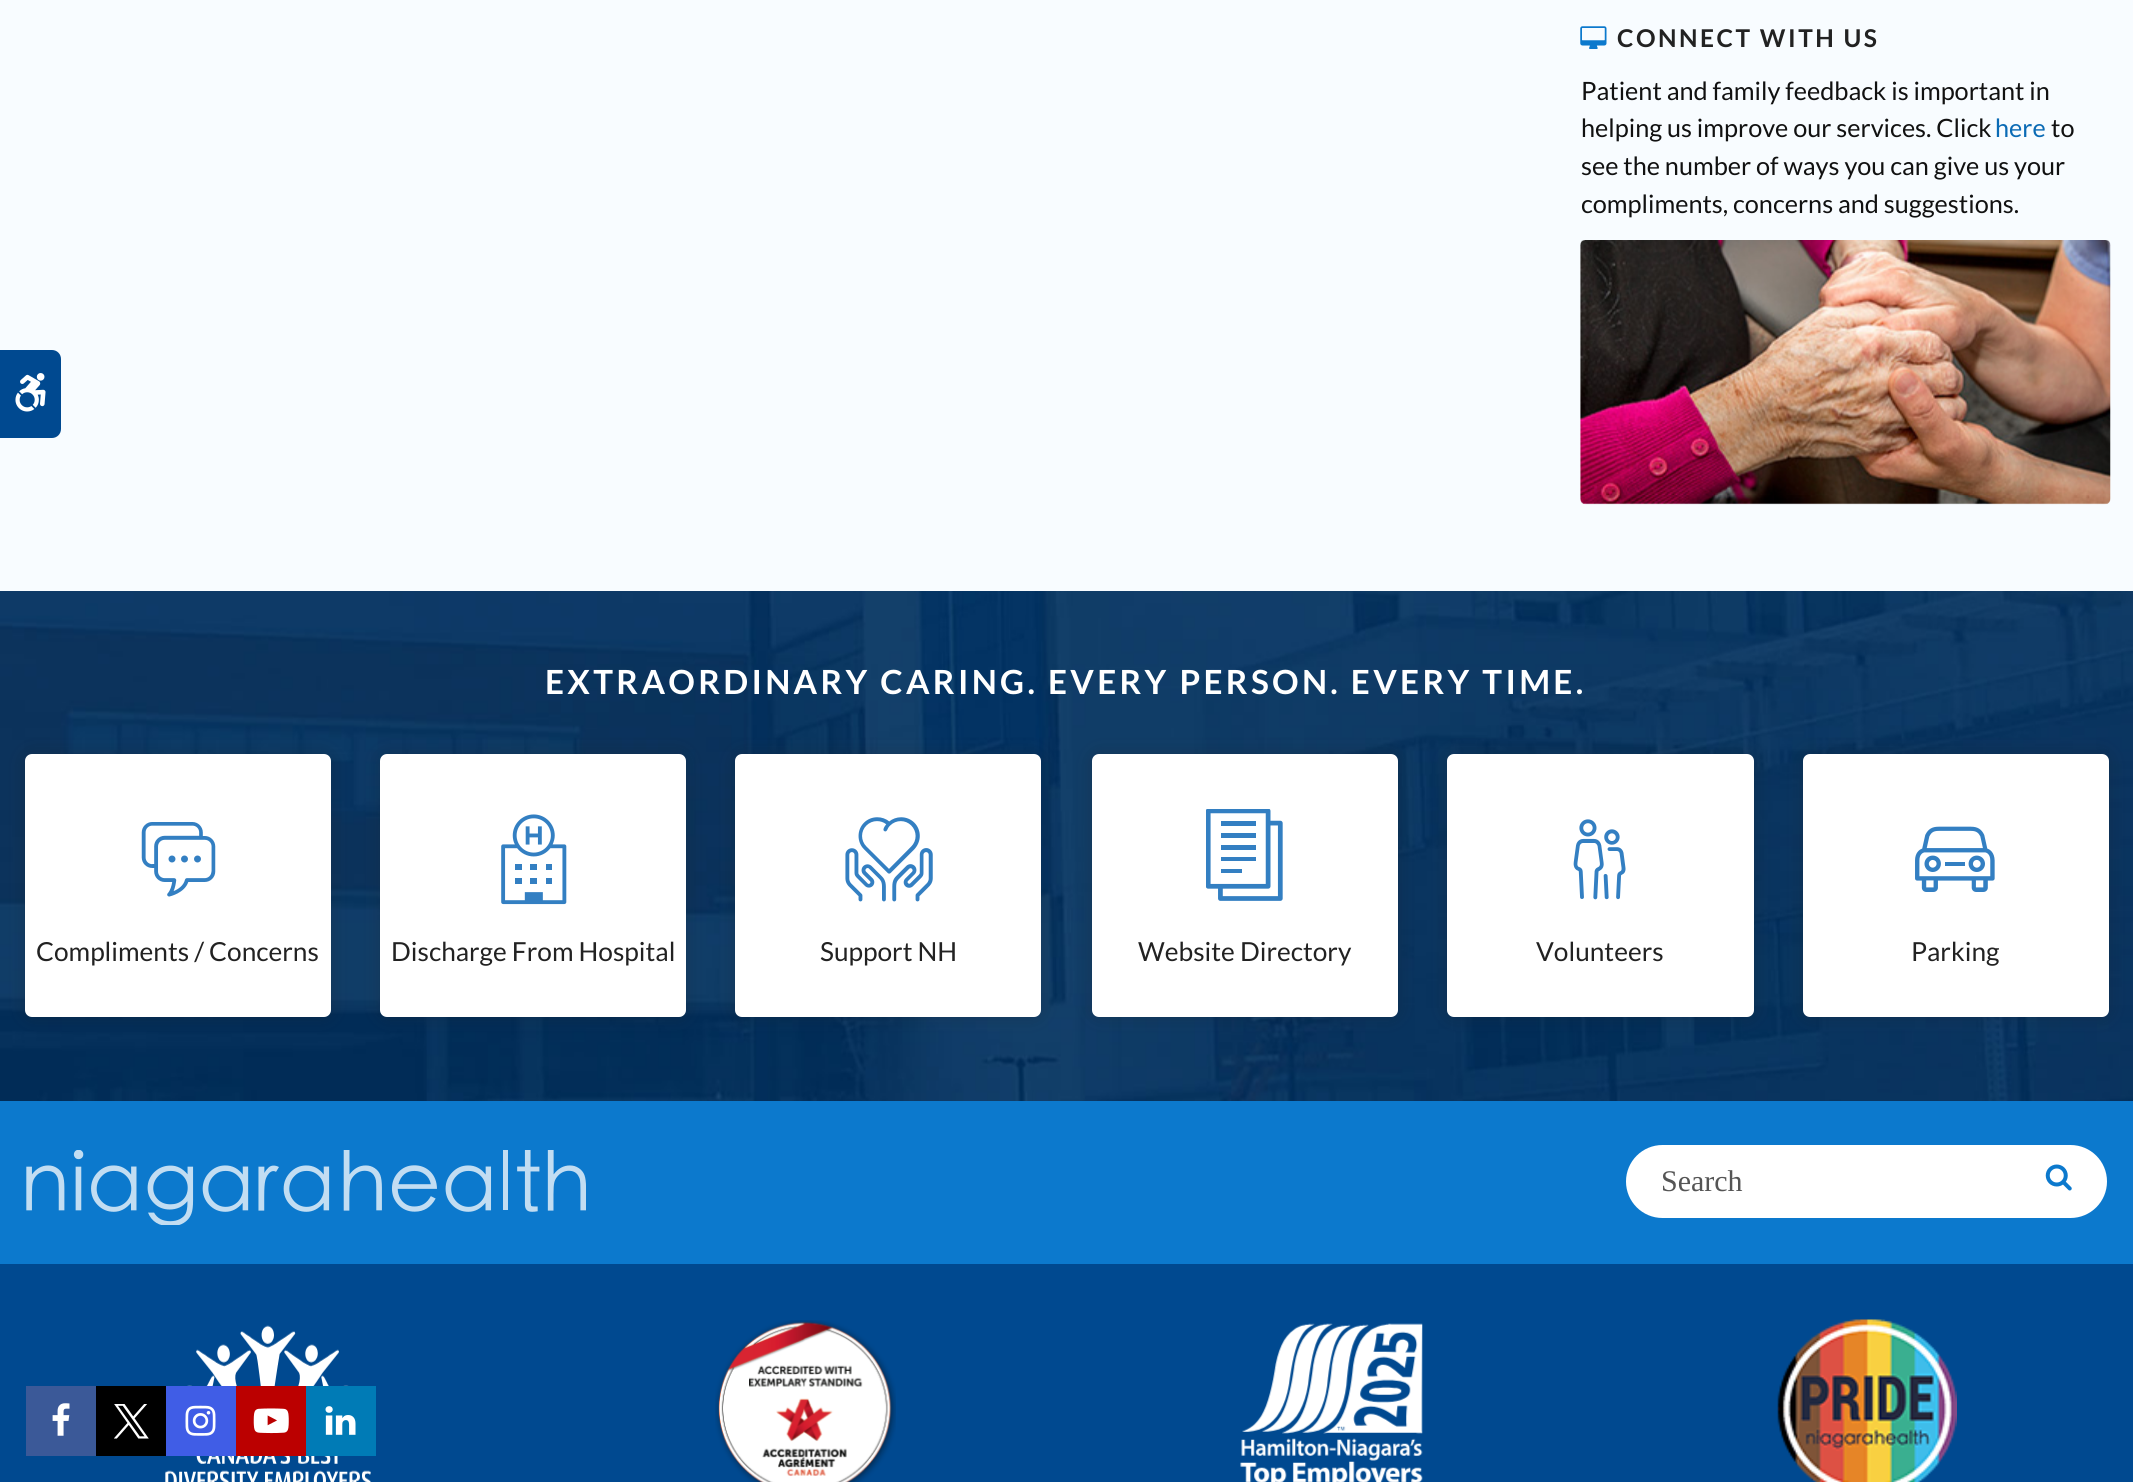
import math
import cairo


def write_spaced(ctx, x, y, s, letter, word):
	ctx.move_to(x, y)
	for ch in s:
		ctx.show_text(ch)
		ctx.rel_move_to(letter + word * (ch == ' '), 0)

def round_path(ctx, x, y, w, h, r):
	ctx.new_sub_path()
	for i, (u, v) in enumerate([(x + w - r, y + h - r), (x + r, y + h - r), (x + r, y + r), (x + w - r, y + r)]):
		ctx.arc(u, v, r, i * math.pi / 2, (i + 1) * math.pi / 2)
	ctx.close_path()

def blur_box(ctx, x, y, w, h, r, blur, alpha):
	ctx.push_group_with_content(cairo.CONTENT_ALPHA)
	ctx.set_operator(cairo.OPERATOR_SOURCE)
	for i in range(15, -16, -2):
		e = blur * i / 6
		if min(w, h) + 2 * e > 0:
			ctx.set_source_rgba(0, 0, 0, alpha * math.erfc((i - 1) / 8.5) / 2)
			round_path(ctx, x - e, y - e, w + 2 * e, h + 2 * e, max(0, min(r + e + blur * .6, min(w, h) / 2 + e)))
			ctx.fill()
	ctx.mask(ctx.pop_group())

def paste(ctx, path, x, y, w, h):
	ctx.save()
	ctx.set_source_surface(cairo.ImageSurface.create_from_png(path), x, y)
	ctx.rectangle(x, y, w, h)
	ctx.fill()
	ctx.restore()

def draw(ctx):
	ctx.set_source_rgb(0, 0.286, 0.565)
	ctx.paint()
	ctx.set_source_rgb(0.969, 0.988, 1)
	ctx.rectangle(0, 0, 2133, 591)
	ctx.fill()
	paste(ctx, 'media/1.png', 1580, 26, 27, 23)
	ctx.select_font_face('Lato', cairo.FONT_SLANT_NORMAL, cairo.FONT_WEIGHT_BOLD)
	ctx.set_font_size(24.5)
	ctx.set_source_rgb(0.133, 0.133, 0.133)
	write_spaced(ctx, 1617, 47, 'CONNECT WITH US', 2.5, 0)
	ctx.select_font_face('Lato')
	ctx.set_font_size(25.25)
	ctx.set_source_rgb(0.067, 0.067, 0.067)
	ctx.move_to(1581, 100)
	ctx.show_text('Patient and family feedback is important in')
	ctx.move_to(1581, 137)
	ctx.show_text('helping us improve our services. Click')
	ctx.set_source_rgb(0.043, 0.42, 0.71)
	ctx.move_to(1995, 137)
	ctx.show_text('here')
	ctx.set_source_rgb(0.067, 0.067, 0.067)
	for x, y, s in [
		(2051, 137, 'to'),
		(1581, 175, 'see the number of ways you can give us your'),
		(1581, 213, 'compliments, concerns and suggestions.'),
	]:
		ctx.move_to(x, y)
		ctx.show_text(s)
	paste(ctx, 'media/2.png', 1580, 240, 531, 265)
	ctx.set_source_rgb(0, 0.286, 0.565)
	ctx.new_path()
	ctx.move_to(0, 350)
	ctx.line_to(52, 350)
	ctx.curve_to(57, 350, 61, 354, 61, 359)
	ctx.line_to(61, 429)
	ctx.curve_to(61, 434, 57, 438, 52, 438)
	ctx.line_to(0, 438)
	ctx.close_path()
	ctx.fill()
	paste(ctx, 'media/3.png', 15, 373, 31, 39)
	paste(ctx, 'media/4.png', 0, 591, 2133, 510)
	ctx.select_font_face('Lato', cairo.FONT_SLANT_NORMAL, cairo.FONT_WEIGHT_BOLD)
	ctx.set_font_size(33.25)
	ctx.set_source_rgb(1, 1, 1)
	write_spaced(ctx, 545, 694, 'EXTRAORDINARY CARING. EVERY PERSON. EVERY TIME.', 3.3, 0)
	ctx.set_source_rgb(0.133, 0.133, 0.133)
	blur_box(ctx, 25, 754, 306, 263, 7, 9, 0.25)
	ctx.set_source_rgb(1, 1, 1)
	round_path(ctx, 25, 754, 306, 263, 7)
	ctx.fill()
	paste(ctx, 'media/5.png', 141, 822, 75, 75)
	ctx.select_font_face('Lato')
	ctx.set_font_size(26.25)
	ctx.set_source_rgb(0.133, 0.133, 0.133)
	ctx.move_to(36, 961)
	ctx.show_text('Compliments / Concerns')
	ctx.set_source_rgb(0.133, 0.133, 0.133)
	blur_box(ctx, 380, 754, 306, 263, 7, 9, 0.25)
	ctx.set_source_rgb(1, 1, 1)
	round_path(ctx, 380, 754, 306, 263, 7)
	ctx.fill()
	paste(ctx, 'media/6.png', 501, 814, 66, 91)
	ctx.set_source_rgb(0.133, 0.133, 0.133)
	ctx.move_to(391, 961)
	ctx.show_text('Discharge From Hospital')
	ctx.set_source_rgb(0.133, 0.133, 0.133)
	blur_box(ctx, 735, 754, 306, 263, 7, 9, 0.25)
	ctx.set_source_rgb(1, 1, 1)
	round_path(ctx, 735, 754, 306, 263, 7)
	ctx.fill()
	paste(ctx, 'media/7.png', 845, 817, 88, 85)
	ctx.set_source_rgb(0.133, 0.133, 0.133)
	ctx.move_to(820, 961)
	ctx.show_text('Support NH')
	ctx.set_source_rgb(0.133, 0.133, 0.133)
	blur_box(ctx, 1092, 754, 306, 263, 7, 9, 0.25)
	ctx.set_source_rgb(1, 1, 1)
	round_path(ctx, 1092, 754, 306, 263, 7)
	ctx.fill()
	paste(ctx, 'media/8.png', 1206, 809, 77, 92)
	ctx.set_source_rgb(0.133, 0.133, 0.133)
	ctx.move_to(1138, 961)
	ctx.show_text('Website Directory')
	ctx.set_source_rgb(0.133, 0.133, 0.133)
	blur_box(ctx, 1447, 754, 307, 263, 7, 9, 0.25)
	ctx.set_source_rgb(1, 1, 1)
	round_path(ctx, 1447, 754, 307, 263, 7)
	ctx.fill()
	paste(ctx, 'media/9.png', 1573, 819, 53, 81)
	ctx.set_source_rgb(0.133, 0.133, 0.133)
	ctx.move_to(1536, 961)
	ctx.show_text('Volunteers')
	ctx.set_source_rgb(0.133, 0.133, 0.133)
	blur_box(ctx, 1803, 754, 306, 263, 7, 9, 0.25)
	ctx.set_source_rgb(1, 1, 1)
	round_path(ctx, 1803, 754, 306, 263, 7)
	ctx.fill()
	paste(ctx, 'media/10.png', 1915, 826, 80, 66)
	ctx.set_source_rgb(0.133, 0.133, 0.133)
	ctx.move_to(1911, 961)
	ctx.show_text('Parking')
	ctx.set_source_rgb(0.047, 0.475, 0.804)
	ctx.rectangle(0, 1101, 2133, 163)
	ctx.fill()
	paste(ctx, 'media/11.png', 26, 1150, 560, 75)
	ctx.set_source_rgb(1, 1, 1)
	round_path(ctx, 1626, 1145, 481, 73, 36.5)
	ctx.fill()
	ctx.select_font_face('Liberation Serif')
	ctx.set_font_size(30)
	ctx.set_source_rgb(0.333, 0.333, 0.333)
	ctx.move_to(1661, 1191)
	ctx.show_text('Search')
	paste(ctx, 'media/12.png', 2045, 1164, 27, 27)
	paste(ctx, 'media/13.png', 165, 1325, 206, 157)
	paste(ctx, 'media/14.png', 715, 1320, 181, 162)
	paste(ctx, 'media/15.png', 1240, 1323, 183, 159)
	paste(ctx, 'media/16.png', 1777, 1319, 180, 163)
	ctx.set_source_rgb(0.231, 0.349, 0.596)
	ctx.rectangle(26, 1386, 70, 70)
	ctx.fill()
	paste(ctx, 'media/17.png', 52, 1403, 18, 33)
	ctx.set_source_rgb(0, 0, 0)
	ctx.rectangle(96, 1386, 70, 70)
	ctx.fill()
	paste(ctx, 'media/18.png', 114, 1404, 35, 35)
	ctx.set_source_rgb(0.251, 0.365, 0.902)
	ctx.rectangle(166, 1386, 70, 70)
	ctx.fill()
	paste(ctx, 'media/19.png', 185, 1405, 31, 31)
	ctx.set_source_rgb(0.733, 0, 0)
	ctx.rectangle(236, 1386, 70, 70)
	ctx.fill()
	paste(ctx, 'media/20.png', 253, 1408, 36, 26)
	ctx.set_source_rgb(0, 0.482, 0.714)
	ctx.rectangle(306, 1386, 70, 70)
	ctx.fill()
	paste(ctx, 'media/21.png', 325, 1406, 31, 29)


surface = cairo.ImageSurface(cairo.FORMAT_RGB24, 2133, 1482)
ctx = cairo.Context(surface)
options = cairo.FontOptions()
options.set_hint_metrics(cairo.HINT_METRICS_OFF)
options.set_hint_style(cairo.HINT_STYLE_NONE)
ctx.set_font_options(options)
ctx.set_miter_limit(4)
draw(ctx)
surface.write_to_png('image.png')
